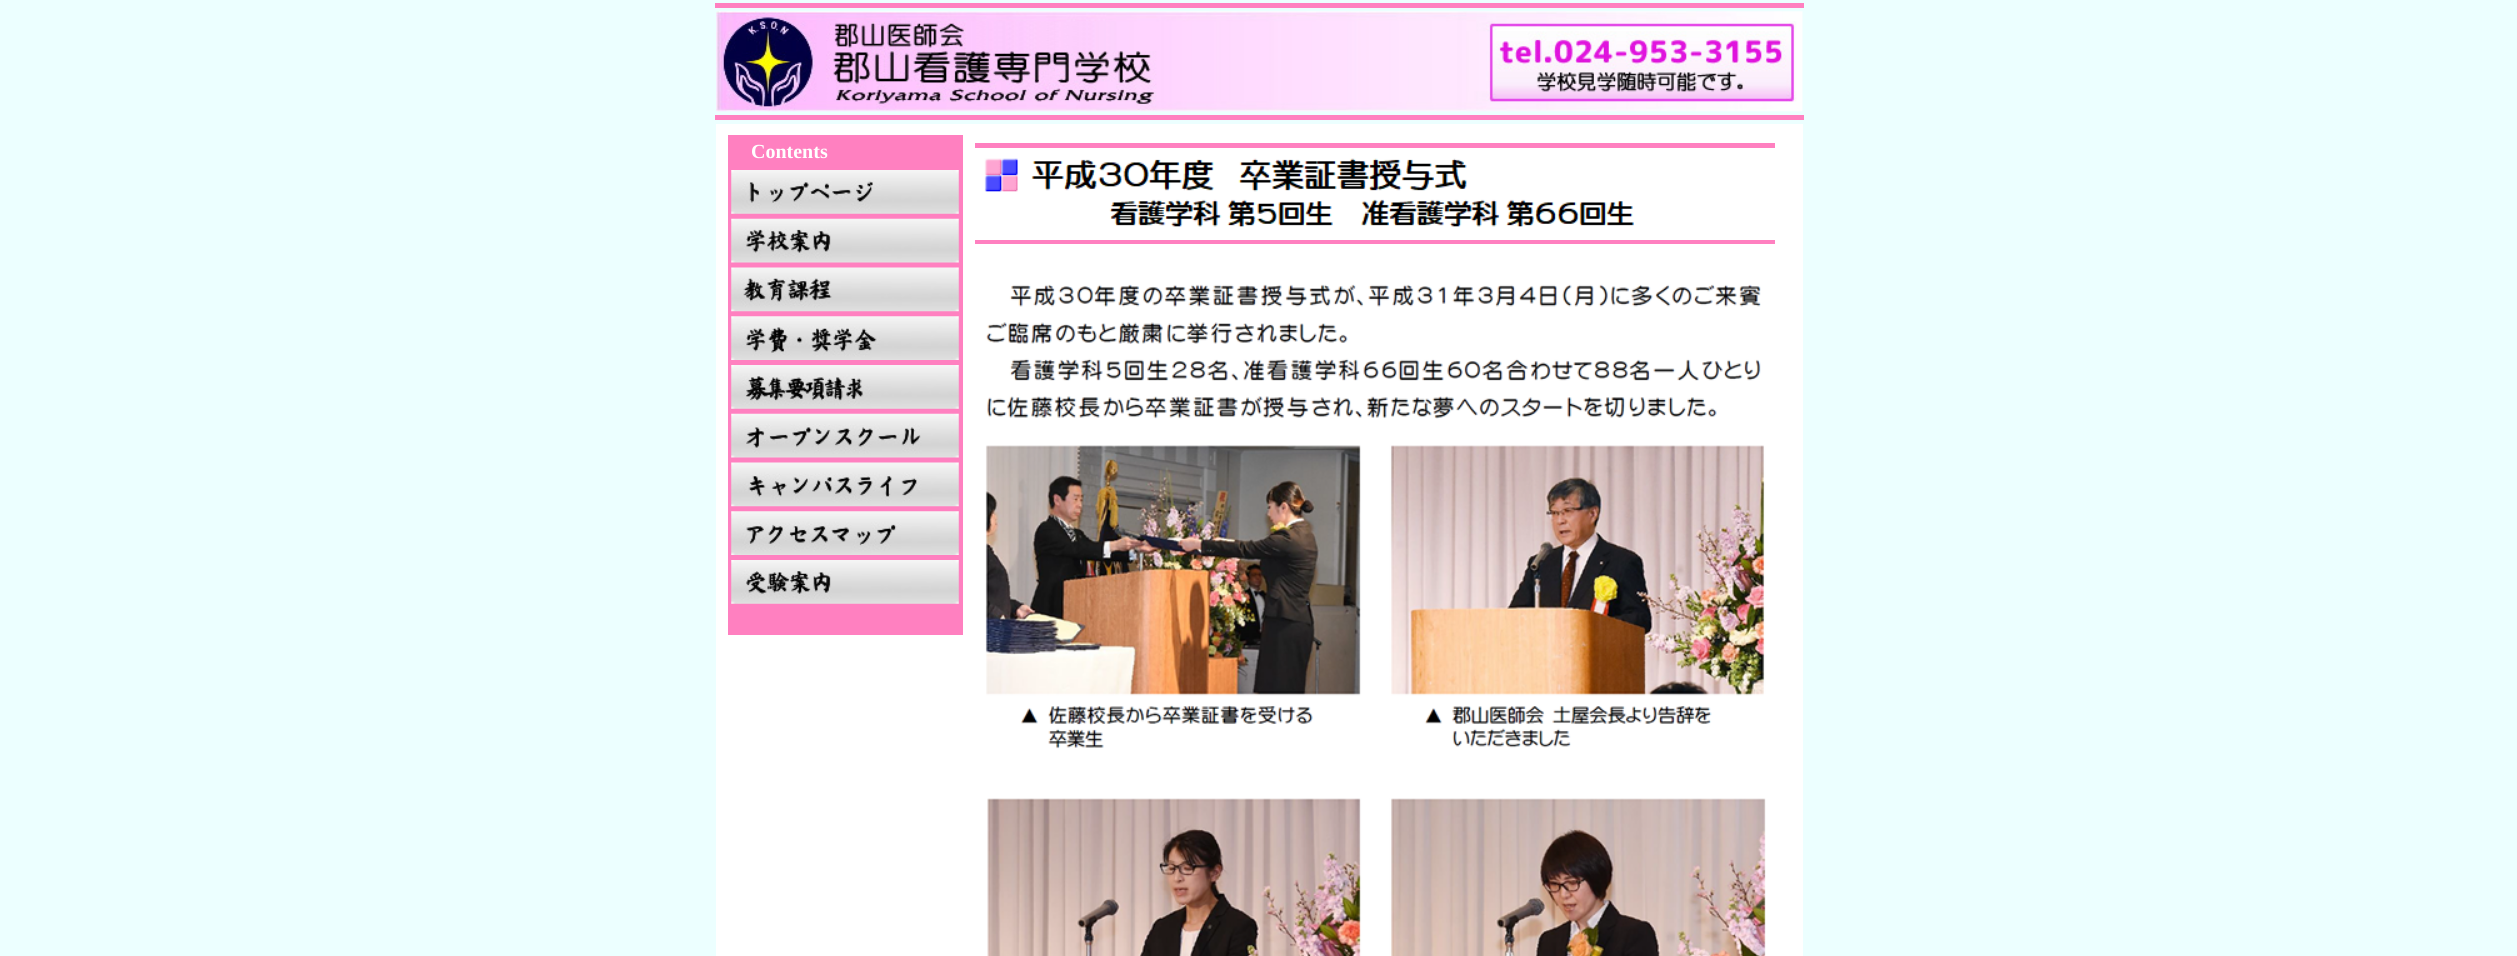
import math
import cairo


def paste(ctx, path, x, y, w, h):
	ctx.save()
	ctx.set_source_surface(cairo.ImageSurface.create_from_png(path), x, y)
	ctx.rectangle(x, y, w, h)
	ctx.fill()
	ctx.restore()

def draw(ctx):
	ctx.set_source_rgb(0.925, 1, 1)
	ctx.paint()
	ctx.set_source_rgb(1, 0.502, 0.753)
	ctx.rectangle(715, 3, 1089, 5)
	ctx.fill()
	paste(ctx, 'media/1.png', 716, 11, 1087, 101)
	ctx.rectangle(715, 115, 1089, 5)
	ctx.fill()
	ctx.set_source_rgb(1, 1, 1)
	ctx.rectangle(716, 124, 1087, 832)
	ctx.fill()
	ctx.set_source_rgb(1, 0.502, 0.753)
	ctx.rectangle(728, 135, 235, 500)
	ctx.fill()
	ctx.select_font_face('Liberation Serif', cairo.FONT_SLANT_NORMAL, cairo.FONT_WEIGHT_BOLD)
	ctx.set_font_size(20)
	ctx.set_source_rgb(1, 1, 1)
	ctx.move_to(751, 158)
	ctx.show_text('Contents')
	paste(ctx, 'media/2.png', 731, 170, 228, 44)
	paste(ctx, 'media/3.png', 731, 218, 228, 45)
	paste(ctx, 'media/4.png', 731, 267, 228, 45)
	paste(ctx, 'media/5.png', 731, 316, 228, 44)
	paste(ctx, 'media/6.png', 731, 365, 228, 44)
	paste(ctx, 'media/7.png', 731, 413, 228, 45)
	paste(ctx, 'media/8.png', 731, 462, 228, 45)
	paste(ctx, 'media/9.png', 731, 511, 228, 44)
	paste(ctx, 'media/10.png', 731, 560, 228, 44)
	ctx.set_source_rgb(1, 0.502, 0.753)
	ctx.rectangle(975, 143, 800, 5)
	ctx.fill()
	paste(ctx, 'media/11.png', 984, 158, 650, 69)
	ctx.rectangle(975, 240, 800, 4)
	ctx.fill()
	paste(ctx, 'media/12.png', 986, 284, 775, 135)
	paste(ctx, 'media/13.png', 985, 445, 781, 511)


surface = cairo.ImageSurface(cairo.FORMAT_RGB24, 2517, 956)
ctx = cairo.Context(surface)
options = cairo.FontOptions()
options.set_hint_metrics(cairo.HINT_METRICS_OFF)
options.set_hint_style(cairo.HINT_STYLE_NONE)
ctx.set_font_options(options)
ctx.set_miter_limit(4)
draw(ctx)
surface.write_to_png('image.png')
